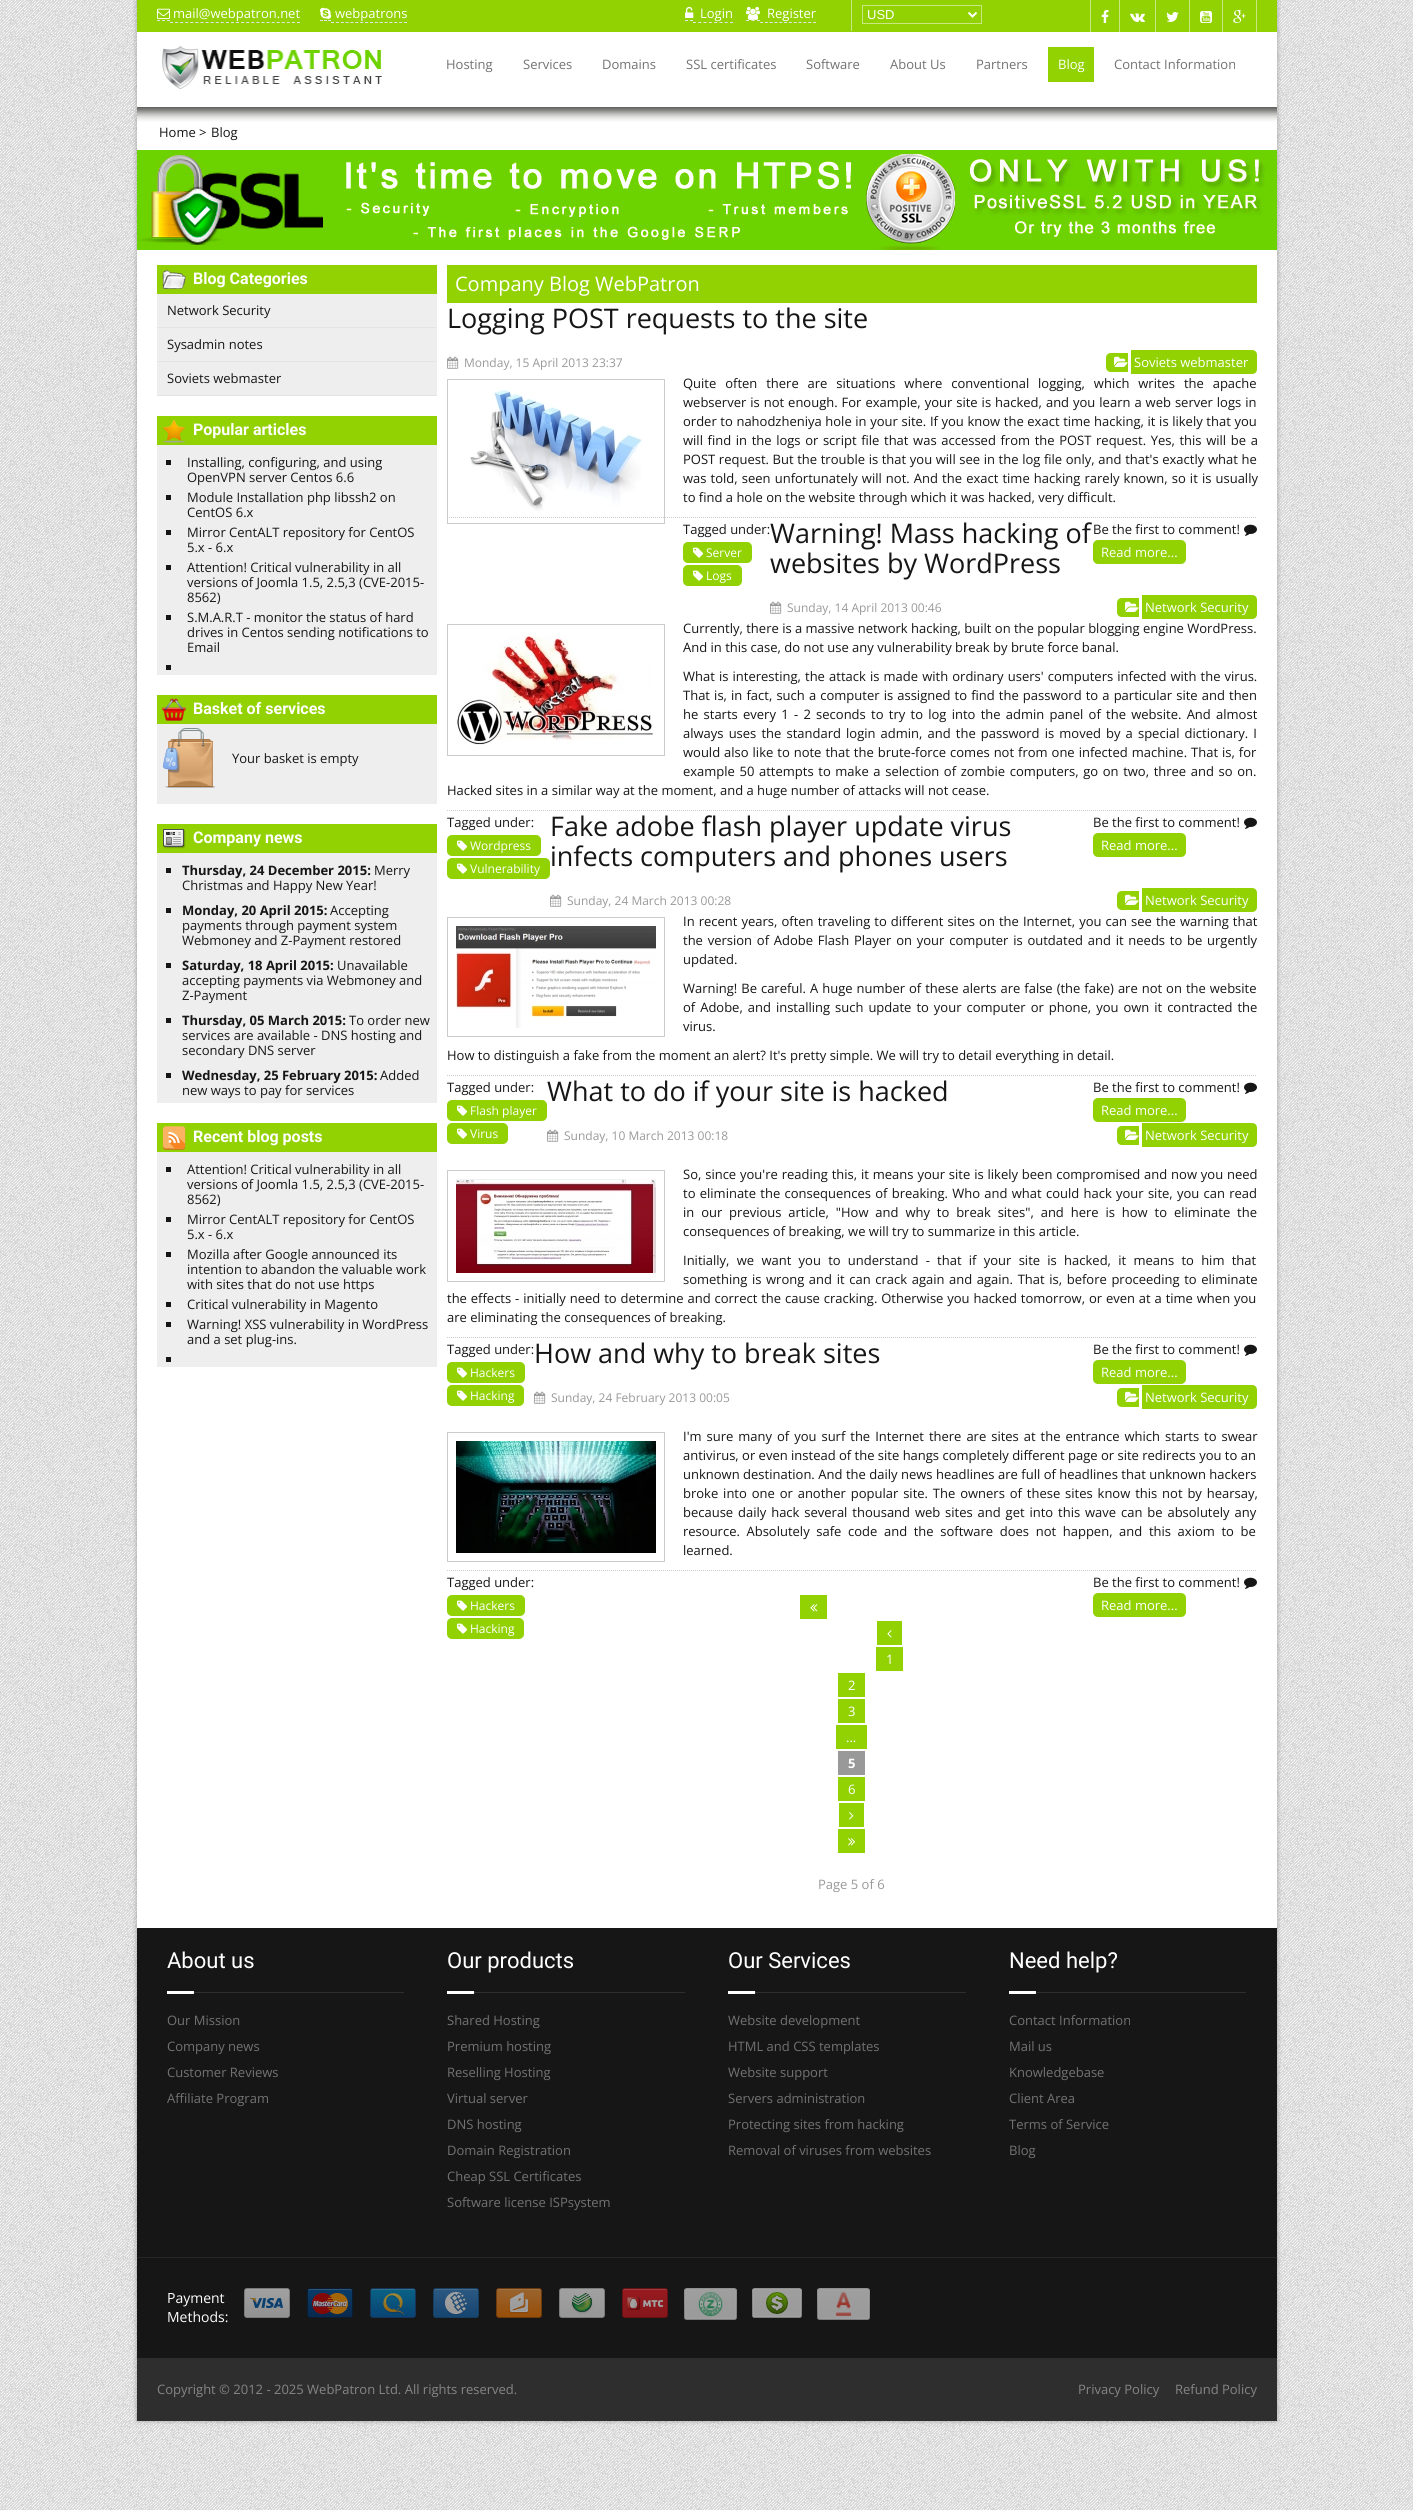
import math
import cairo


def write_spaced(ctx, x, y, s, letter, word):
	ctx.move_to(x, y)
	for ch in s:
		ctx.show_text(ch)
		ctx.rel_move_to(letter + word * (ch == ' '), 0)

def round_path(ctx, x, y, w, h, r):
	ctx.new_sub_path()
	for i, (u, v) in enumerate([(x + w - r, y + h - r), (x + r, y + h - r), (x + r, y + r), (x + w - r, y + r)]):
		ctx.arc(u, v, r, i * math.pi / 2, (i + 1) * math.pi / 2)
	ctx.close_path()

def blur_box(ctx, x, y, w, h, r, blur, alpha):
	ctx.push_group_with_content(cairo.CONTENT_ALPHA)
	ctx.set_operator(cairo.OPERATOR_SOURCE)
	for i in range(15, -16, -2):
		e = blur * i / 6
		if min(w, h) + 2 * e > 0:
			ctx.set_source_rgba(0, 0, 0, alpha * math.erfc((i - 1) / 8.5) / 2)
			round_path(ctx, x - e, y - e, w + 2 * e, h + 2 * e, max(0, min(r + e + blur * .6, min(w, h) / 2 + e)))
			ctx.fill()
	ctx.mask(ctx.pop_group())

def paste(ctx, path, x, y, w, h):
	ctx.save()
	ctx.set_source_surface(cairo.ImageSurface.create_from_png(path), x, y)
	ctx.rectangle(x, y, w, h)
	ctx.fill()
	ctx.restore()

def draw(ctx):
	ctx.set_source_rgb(1, 1, 1)
	ctx.paint()
	paste(ctx, 'media/1.png', 0, 0, 1413, 2510)
	ctx.set_source_rgb(0, 0, 0)
	blur_box(ctx, 137, 0, 1140, 2421, 0, 2.5, 0.3)
	ctx.set_source_rgb(1, 1, 1)
	ctx.rectangle(137, 32, 1140, 1896)
	ctx.fill()
	ctx.set_source_rgb(0.573, 0.82, 0.008)
	ctx.rectangle(137, 0, 1140, 32)
	ctx.fill()
	ctx.new_path()
	ctx.move_to(157, 20.5)
	ctx.line_to(160, 20.5)
	ctx.move_to(162, 20.5)
	ctx.line_to(165, 20.5)
	ctx.move_to(167, 20.5)
	ctx.line_to(170, 20.5)
	ctx.set_source_rgb(0.894, 0.894, 0.894)
	ctx.set_line_width(1)
	ctx.stroke()
	ctx.new_path()
	ctx.move_to(170, 22.5)
	ctx.line_to(300, 22.5)
	ctx.set_dash([3, 2.08])
	ctx.stroke()
	paste(ctx, 'media/2.png', 157, 8, 13, 11)
	ctx.select_font_face('Open Sans')
	ctx.set_font_size(13)
	ctx.set_source_rgb(1, 1, 1)
	ctx.move_to(173, 18)
	ctx.show_text('mail@webpatron.net')
	ctx.new_path()
	ctx.move_to(320, 20.5)
	ctx.line_to(323, 20.5)
	ctx.move_to(324, 20.5)
	ctx.line_to(327, 20.5)
	ctx.move_to(328, 20.5)
	ctx.line_to(331, 20.5)
	ctx.set_source_rgb(0.894, 0.894, 0.894)
	ctx.set_dash([])
	ctx.stroke()
	ctx.new_path()
	ctx.move_to(331, 22.5)
	ctx.line_to(407, 22.5)
	ctx.set_dash([3, 1.87])
	ctx.stroke()
	paste(ctx, 'media/3.png', 320, 7, 12, 12)
	ctx.set_source_rgb(1, 1, 1)
	ctx.move_to(335, 18)
	ctx.show_text('webpatrons')
	ctx.new_path()
	ctx.move_to(685, 20.5)
	ctx.line_to(688, 20.5)
	ctx.move_to(690, 20.5)
	ctx.line_to(693, 20.5)
	ctx.set_source_rgb(0.894, 0.894, 0.894)
	ctx.set_dash([])
	ctx.stroke()
	ctx.new_path()
	ctx.move_to(693, 22.5)
	ctx.line_to(733, 22.5)
	ctx.set_dash([3, 2.29])
	ctx.stroke()
	paste(ctx, 'media/4.png', 685, 6, 9, 12)
	ctx.set_source_rgb(1, 1, 1)
	ctx.move_to(700, 18)
	ctx.show_text('Login')
	ctx.new_path()
	ctx.move_to(746, 20.5)
	ctx.line_to(749, 20.5)
	ctx.move_to(751.5, 20.5)
	ctx.line_to(754.5, 20.5)
	ctx.move_to(757, 20.5)
	ctx.line_to(760, 20.5)
	ctx.set_source_rgb(0.894, 0.894, 0.894)
	ctx.set_dash([])
	ctx.stroke()
	ctx.new_path()
	ctx.move_to(760, 22.5)
	ctx.line_to(816, 22.5)
	ctx.set_dash([3, 1.82])
	ctx.stroke()
	paste(ctx, 'media/5.png', 746, 6, 14, 14)
	ctx.set_source_rgb(1, 1, 1)
	ctx.move_to(767, 18)
	ctx.show_text('Register')
	ctx.set_source_rgb(0.788, 0.91, 0.506)
	ctx.rectangle(851, 0, 1, 31)
	ctx.fill()
	ctx.rectangle(862.5, 5.5, 119, 18)
	ctx.set_dash([])
	ctx.stroke()
	ctx.new_path()
	ctx.move_to(968.5, 12.5)
	ctx.line_to(972.5, 16.5)
	ctx.line_to(976.5, 12.5)
	ctx.set_source_rgb(1, 1, 1)
	ctx.set_line_width(2)
	ctx.stroke()
	ctx.select_font_face('Liberation Sans')
	ctx.move_to(867, 19)
	ctx.show_text('USD')
	ctx.set_source_rgb(0.788, 0.91, 0.506)
	ctx.rectangle(1090, 0, 1, 32)
	ctx.fill()
	paste(ctx, 'media/6.png', 1101, 10, 8, 13)
	ctx.rectangle(1119, 0, 1, 32)
	ctx.fill()
	paste(ctx, 'media/7.png', 1130, 13, 15, 9)
	ctx.rectangle(1155, 0, 1, 32)
	ctx.fill()
	paste(ctx, 'media/8.png', 1166, 12, 13, 10)
	ctx.rectangle(1189, 0, 1, 32)
	ctx.fill()
	paste(ctx, 'media/9.png', 1200, 11, 12, 12)
	ctx.rectangle(1256, 0, 1, 32)
	ctx.fill()
	ctx.rectangle(1222, 0, 1, 32)
	ctx.fill()
	paste(ctx, 'media/10.png', 1233, 10, 13, 13)
	paste(ctx, 'media/11.png', 162, 46, 220, 43)
	ctx.select_font_face('Open Sans')
	ctx.set_source_rgb(0.447, 0.447, 0.447)
	for x, y, s in [
		(446, 69, 'Hosting'),
		(523, 69, 'Services'),
		(602, 69, 'Domains'),
		(686, 69, 'SSL certificates'),
		(806, 69, 'Software'),
		(890, 69, 'About Us'),
		(976, 69, 'Partners'),
	]:
		ctx.move_to(x, y)
		ctx.show_text(s)
	ctx.set_source_rgb(0.573, 0.82, 0.008)
	ctx.rectangle(1048, 47, 46, 35)
	ctx.fill()
	ctx.set_source_rgb(1, 1, 1)
	ctx.move_to(1058, 69)
	ctx.show_text('Blog')
	ctx.set_source_rgb(0.447, 0.447, 0.447)
	ctx.move_to(1114, 69)
	ctx.show_text('Contact Information')
	paste(ctx, 'media/12.png', 137, 107, 1140, 15)
	ctx.set_source_rgb(0.086, 0.086, 0.086)
	ctx.move_to(159, 137)
	ctx.show_text('Home >')
	ctx.move_to(211, 137)
	ctx.show_text('Blog')
	paste(ctx, 'media/13.png', 137, 150, 1140, 100)
	ctx.set_source_rgb(0.573, 0.82, 0.008)
	ctx.rectangle(157, 265, 280, 29)
	ctx.fill()
	paste(ctx, 'media/14.png', 162, 269, 24, 21)
	ctx.select_font_face('Roboto', cairo.FONT_SLANT_NORMAL, cairo.FONT_WEIGHT_BOLD)
	ctx.set_font_size(16)
	ctx.set_source_rgb(1, 1, 1)
	ctx.move_to(193, 284)
	ctx.show_text('Blog Categories')
	ctx.set_source_rgb(0.937, 0.933, 0.933)
	ctx.rectangle(157, 294, 280, 101)
	ctx.fill()
	ctx.set_source_rgb(0.894, 0.894, 0.894)
	ctx.rectangle(157, 327, 280, 1)
	ctx.fill()
	ctx.select_font_face('Open Sans')
	ctx.set_font_size(13)
	ctx.set_source_rgb(0.086, 0.086, 0.086)
	ctx.move_to(167, 315)
	ctx.show_text('Network Security')
	ctx.set_source_rgb(0.894, 0.894, 0.894)
	ctx.rectangle(157, 361, 280, 1)
	ctx.fill()
	ctx.set_source_rgb(0.086, 0.086, 0.086)
	ctx.move_to(167, 349)
	ctx.show_text('Sysadmin notes')
	ctx.set_source_rgb(0.894, 0.894, 0.894)
	ctx.rectangle(157, 395, 280, 1)
	ctx.fill()
	ctx.set_source_rgb(0.086, 0.086, 0.086)
	ctx.move_to(167, 383)
	ctx.show_text('Soviets webmaster')
	ctx.set_source_rgb(0.937, 0.933, 0.933)
	ctx.rectangle(157, 445, 280, 230)
	ctx.fill()
	ctx.set_source_rgb(0.573, 0.82, 0.008)
	ctx.rectangle(157, 416, 280, 29)
	ctx.fill()
	paste(ctx, 'media/15.png', 162, 420, 24, 23)
	ctx.select_font_face('Roboto', cairo.FONT_SLANT_NORMAL, cairo.FONT_WEIGHT_BOLD)
	ctx.set_font_size(16)
	ctx.set_source_rgb(1, 1, 1)
	ctx.move_to(193, 435)
	ctx.show_text('Popular articles')
	ctx.set_source_rgb(0.086, 0.086, 0.086)
	ctx.rectangle(166, 460, 5, 5)
	ctx.fill()
	ctx.select_font_face('Open Sans')
	ctx.set_font_size(13)
	ctx.move_to(187, 467)
	ctx.show_text('Installing, configuring, and using')
	ctx.move_to(187, 482)
	ctx.show_text('OpenVPN server Centos 6.6')
	ctx.rectangle(166, 495, 5, 5)
	ctx.fill()
	ctx.move_to(187, 502)
	ctx.show_text('Module Installation php libssh2 on')
	ctx.move_to(187, 517)
	ctx.show_text('CentOS 6.x')
	ctx.rectangle(166, 530, 5, 5)
	ctx.fill()
	ctx.move_to(187, 537)
	ctx.show_text('Mirror CentALT repository for CentOS')
	ctx.move_to(187, 552)
	ctx.show_text('5.x - 6.x')
	ctx.rectangle(166, 565, 5, 5)
	ctx.fill()
	for x, y, s in [
		(187, 572, 'Attention! Critical vulnerability in all'),
		(187, 587, 'versions of Joomla 1.5, 2.5,3 (CVE-2015-'),
		(187, 602, '8562)'),
	]:
		ctx.move_to(x, y)
		ctx.show_text(s)
	ctx.rectangle(166, 615, 5, 5)
	ctx.fill()
	for x, y, s in [
		(187, 622, 'S.M.A.R.T - monitor the status of hard'),
		(187, 637, 'drives in Centos sending notifications to'),
		(187, 652, 'Email'),
	]:
		ctx.move_to(x, y)
		ctx.show_text(s)
	ctx.rectangle(166, 665, 5, 5)
	ctx.fill()
	ctx.set_source_rgb(0.937, 0.933, 0.933)
	ctx.rectangle(157, 724, 280, 80)
	ctx.fill()
	ctx.set_source_rgb(0.573, 0.82, 0.008)
	ctx.rectangle(157, 695, 280, 29)
	ctx.fill()
	paste(ctx, 'media/16.png', 162, 698, 24, 23)
	ctx.select_font_face('Roboto', cairo.FONT_SLANT_NORMAL, cairo.FONT_WEIGHT_BOLD)
	ctx.set_font_size(16)
	ctx.set_source_rgb(1, 1, 1)
	ctx.move_to(193, 714)
	ctx.show_text('Basket of services')
	paste(ctx, 'media/17.png', 162, 728, 53, 60)
	ctx.select_font_face('Open Sans')
	ctx.set_font_size(13)
	ctx.set_source_rgb(0.086, 0.086, 0.086)
	ctx.move_to(232, 763)
	ctx.show_text('Your basket is empty')
	ctx.set_source_rgb(0.937, 0.933, 0.933)
	ctx.rectangle(157, 853, 280, 250)
	ctx.fill()
	ctx.set_source_rgb(0.573, 0.82, 0.008)
	ctx.rectangle(157, 824, 280, 29)
	ctx.fill()
	paste(ctx, 'media/18.png', 163, 829, 23, 20)
	ctx.select_font_face('Roboto', cairo.FONT_SLANT_NORMAL, cairo.FONT_WEIGHT_BOLD)
	ctx.set_font_size(16)
	ctx.set_source_rgb(1, 1, 1)
	ctx.move_to(193, 843)
	ctx.show_text('Company news')
	ctx.set_source_rgb(0.086, 0.086, 0.086)
	ctx.rectangle(166, 868, 5, 5)
	ctx.fill()
	ctx.select_font_face('Open Sans', cairo.FONT_SLANT_NORMAL, cairo.FONT_WEIGHT_BOLD)
	ctx.set_font_size(13)
	ctx.move_to(182, 875)
	ctx.show_text('Thursday, 24 December 2015:')
	ctx.select_font_face('Open Sans')
	ctx.move_to(374, 875)
	ctx.show_text('Merry')
	ctx.move_to(182, 890)
	ctx.show_text('Christmas and Happy New Year!')
	ctx.rectangle(166, 908, 5, 5)
	ctx.fill()
	ctx.select_font_face('Open Sans', cairo.FONT_SLANT_NORMAL, cairo.FONT_WEIGHT_BOLD)
	ctx.move_to(182, 915)
	ctx.show_text('Monday, 20 April 2015:')
	ctx.select_font_face('Open Sans')
	for x, y, s in [
		(330, 915, 'Accepting'),
		(182, 930, 'payments through payment system'),
		(182, 945, 'Webmoney and Z-Payment restored'),
	]:
		ctx.move_to(x, y)
		ctx.show_text(s)
	ctx.rectangle(166, 963, 5, 5)
	ctx.fill()
	ctx.select_font_face('Open Sans', cairo.FONT_SLANT_NORMAL, cairo.FONT_WEIGHT_BOLD)
	ctx.move_to(182, 970)
	ctx.show_text('Saturday, 18 April 2015:')
	ctx.select_font_face('Open Sans')
	for x, y, s in [
		(337, 970, 'Unavailable'),
		(182, 985, 'accepting payments via Webmoney and'),
		(182, 1000, 'Z-Payment'),
	]:
		ctx.move_to(x, y)
		ctx.show_text(s)
	ctx.rectangle(166, 1018, 5, 5)
	ctx.fill()
	ctx.select_font_face('Open Sans', cairo.FONT_SLANT_NORMAL, cairo.FONT_WEIGHT_BOLD)
	ctx.move_to(182, 1025)
	ctx.show_text('Thursday, 05 March 2015:')
	ctx.select_font_face('Open Sans')
	for x, y, s in [
		(349, 1025, 'To order new'),
		(182, 1040, 'services are available - DNS hosting and'),
		(182, 1055, 'secondary DNS server'),
	]:
		ctx.move_to(x, y)
		ctx.show_text(s)
	ctx.rectangle(166, 1073, 5, 5)
	ctx.fill()
	ctx.select_font_face('Open Sans', cairo.FONT_SLANT_NORMAL, cairo.FONT_WEIGHT_BOLD)
	ctx.move_to(182, 1080)
	ctx.show_text('Wednesday, 25 February 2015:')
	ctx.select_font_face('Open Sans')
	ctx.move_to(380, 1080)
	ctx.show_text('Added')
	ctx.move_to(182, 1095)
	ctx.show_text('new ways to pay for services')
	ctx.set_source_rgb(0.937, 0.933, 0.933)
	ctx.rectangle(157, 1152, 280, 215)
	ctx.fill()
	ctx.set_source_rgb(0.573, 0.82, 0.008)
	ctx.rectangle(157, 1123, 280, 29)
	ctx.fill()
	paste(ctx, 'media/19.png', 162, 1126, 24, 24)
	ctx.select_font_face('Roboto', cairo.FONT_SLANT_NORMAL, cairo.FONT_WEIGHT_BOLD)
	ctx.set_font_size(16)
	ctx.set_source_rgb(1, 1, 1)
	ctx.move_to(193, 1142)
	ctx.show_text('Recent blog posts')
	ctx.set_source_rgb(0.086, 0.086, 0.086)
	ctx.rectangle(166, 1167, 5, 5)
	ctx.fill()
	ctx.select_font_face('Open Sans')
	ctx.set_font_size(13)
	for x, y, s in [
		(187, 1174, 'Attention! Critical vulnerability in all'),
		(187, 1189, 'versions of Joomla 1.5, 2.5,3 (CVE-2015-'),
		(187, 1204, '8562)'),
	]:
		ctx.move_to(x, y)
		ctx.show_text(s)
	ctx.rectangle(166, 1217, 5, 5)
	ctx.fill()
	ctx.move_to(187, 1224)
	ctx.show_text('Mirror CentALT repository for CentOS')
	ctx.move_to(187, 1239)
	ctx.show_text('5.x - 6.x')
	ctx.rectangle(166, 1252, 5, 5)
	ctx.fill()
	for x, y, s in [
		(187, 1259, 'Mozilla after Google announced its'),
		(187, 1274, 'intention to abandon the valuable work'),
		(187, 1289, 'with sites that do not use https'),
	]:
		ctx.move_to(x, y)
		ctx.show_text(s)
	ctx.rectangle(166, 1302, 5, 5)
	ctx.fill()
	ctx.move_to(187, 1309)
	ctx.show_text('Critical vulnerability in Magento')
	ctx.rectangle(166, 1322, 5, 5)
	ctx.fill()
	ctx.move_to(187, 1329)
	ctx.show_text('Warning! XSS vulnerability in WordPress')
	ctx.move_to(187, 1344)
	ctx.show_text('and a set plug-ins.')
	ctx.rectangle(166, 1357, 5, 5)
	ctx.fill()
	ctx.set_source_rgb(0.573, 0.82, 0.008)
	ctx.rectangle(447, 265, 810, 38)
	ctx.fill()
	ctx.set_font_size(20)
	ctx.set_source_rgb(1, 1, 1)
	ctx.move_to(455, 291)
	ctx.show_text('Company Blog WebPatron')
	ctx.set_font_size(27)
	ctx.set_source_rgb(0.086, 0.086, 0.086)
	ctx.move_to(447, 328)
	ctx.show_text('Logging POST requests to the site')
	paste(ctx, 'media/20.png', 447, 356, 12, 13)
	ctx.set_font_size(12)
	ctx.set_source_rgb(0.6, 0.6, 0.6)
	ctx.move_to(464, 367)
	ctx.show_text('Monday, 15 April 2013 23:37')
	ctx.set_source_rgb(0.573, 0.82, 0.008)
	ctx.new_path()
	ctx.move_to(1111, 353)
	ctx.line_to(1128, 353)
	ctx.line_to(1128, 372)
	ctx.line_to(1111, 372)
	ctx.curve_to(1108, 372, 1106, 370, 1106, 367)
	ctx.line_to(1106, 358)
	ctx.curve_to(1106, 355, 1108, 353, 1111, 353)
	ctx.close_path()
	ctx.fill()
	ctx.new_path()
	ctx.move_to(1131, 350)
	ctx.line_to(1252, 350)
	ctx.curve_to(1255, 350, 1257, 352, 1257, 355)
	ctx.line_to(1257, 369)
	ctx.curve_to(1257, 372, 1255, 374, 1252, 374)
	ctx.line_to(1131, 374)
	ctx.close_path()
	ctx.fill()
	paste(ctx, 'media/21.png', 1114, 356, 14, 11)
	ctx.set_font_size(13)
	ctx.set_source_rgb(1, 1, 1)
	ctx.move_to(1134, 367)
	ctx.show_text('Soviets webmaster')
	ctx.new_path()
	ctx.move_to(447, 517.5)
	ctx.line_to(1257, 517.5)
	ctx.set_source_rgb(0.8, 0.8, 0.8)
	ctx.set_line_width(1)
	ctx.set_dash([1, 1])
	ctx.stroke()
	ctx.rectangle(447.5, 379.5, 217, 144)
	ctx.set_dash([])
	ctx.stroke()
	paste(ctx, 'media/22.png', 470, 389, 172, 122)
	ctx.set_source_rgb(0.086, 0.086, 0.086)
	write_spaced(ctx, 683, 388, 'Quite often there are situations where conventional logging, which writes the apache', 0, 5.5)
	write_spaced(ctx, 683, 407, 'webserver is not enough. For example, your site is hacked, and you learn a web server logs in', 0, 0.6)
	write_spaced(ctx, 683, 426, 'order to nahodzheniya hole in your site. If you know the exact time hacking, it is likely that you', 0, 0.25)
	write_spaced(ctx, 683, 445, 'will find in the logs or script file that was accessed from the POST request. Yes, this will be a', 0, 1.25)
	write_spaced(ctx, 683, 464, 'POST request. But the trouble is that you will see in the log file only, and that\'s exactly what he', 0, 0.25)
	write_spaced(ctx, 683, 483, 'was told, seen unfortunately will not. And the exact time hacking rarely known, so it is usually', 0, 0.75)
	ctx.move_to(683, 502)
	ctx.show_text('to find a hole on the website through which it was hacked, very difficult.')
	ctx.move_to(683, 534)
	ctx.show_text('Tagged under:')
	ctx.set_source_rgb(0.573, 0.82, 0.008)
	round_path(ctx, 683, 542, 69, 21, 5)
	ctx.fill()
	paste(ctx, 'media/23.png', 693, 547, 11, 11)
	ctx.set_font_size(12)
	ctx.set_source_rgb(1, 1, 1)
	ctx.move_to(706, 557)
	ctx.show_text('Server')
	ctx.set_source_rgb(0.573, 0.82, 0.008)
	round_path(ctx, 683, 565, 59, 21, 5)
	ctx.fill()
	paste(ctx, 'media/23.png', 693, 570, 11, 11)
	ctx.set_source_rgb(1, 1, 1)
	ctx.move_to(706, 580)
	ctx.show_text('Logs')
	ctx.set_font_size(13)
	ctx.set_source_rgb(0.086, 0.086, 0.086)
	ctx.move_to(1093, 534)
	ctx.show_text('Be the first to comment!')
	paste(ctx, 'media/24.png', 1244, 524, 13, 12)
	ctx.set_source_rgb(0.573, 0.82, 0.008)
	round_path(ctx, 1093, 540, 93, 24, 5)
	ctx.fill()
	ctx.set_source_rgb(1, 1, 1)
	ctx.move_to(1101, 557)
	ctx.show_text('Read more...')
	ctx.set_font_size(27)
	ctx.set_source_rgb(0.086, 0.086, 0.086)
	ctx.move_to(770, 543)
	ctx.show_text('Warning! Mass hacking of')
	ctx.move_to(770, 573)
	ctx.show_text('websites by WordPress')
	paste(ctx, 'media/20.png', 770, 601, 12, 13)
	ctx.set_font_size(12)
	ctx.set_source_rgb(0.6, 0.6, 0.6)
	ctx.move_to(787, 612)
	ctx.show_text('Sunday, 14 April 2013 00:46')
	ctx.set_source_rgb(0.573, 0.82, 0.008)
	ctx.new_path()
	ctx.move_to(1122, 598)
	ctx.line_to(1139, 598)
	ctx.line_to(1139, 617)
	ctx.line_to(1122, 617)
	ctx.curve_to(1119, 617, 1117, 615, 1117, 612)
	ctx.line_to(1117, 603)
	ctx.curve_to(1117, 600, 1119, 598, 1122, 598)
	ctx.close_path()
	ctx.fill()
	ctx.new_path()
	ctx.move_to(1142, 595)
	ctx.line_to(1252, 595)
	ctx.curve_to(1255, 595, 1257, 597, 1257, 600)
	ctx.line_to(1257, 614)
	ctx.curve_to(1257, 617, 1255, 619, 1252, 619)
	ctx.line_to(1142, 619)
	ctx.close_path()
	ctx.fill()
	paste(ctx, 'media/21.png', 1125, 601, 14, 11)
	ctx.set_font_size(13)
	ctx.set_source_rgb(1, 1, 1)
	ctx.move_to(1145, 612)
	ctx.show_text('Network Security')
	ctx.set_source_rgb(0.086, 0.086, 0.086)
	ctx.move_to(683, 633)
	ctx.show_text('Currently, there is a massive network hacking, built on the popular blogging engine WordPress.')
	ctx.move_to(683, 652)
	ctx.show_text('And in this case, do not use any vulnerability break by brute force banal.')
	write_spaced(ctx, 683, 681, 'What is interesting, the attack is made with ordinary users\' computers infected with the virus.', 0, 0.75)
	write_spaced(ctx, 683, 700, 'That is, in fact, such a computer is assigned to find the password to a particular site and then', 0, 0.75)
	write_spaced(ctx, 683, 719, 'he starts every 1 - 2 seconds to try to log into the admin panel of the website. And almost', 0, 1.9)
	write_spaced(ctx, 683, 738, 'always uses the standard login admin, and the password is moved by a special dictionary. I', 0, 1.75)
	write_spaced(ctx, 683, 757, 'would also like to note that the brute-force comes not from one infected machine. That is, for', 0, 0.6)
	write_spaced(ctx, 683, 776, 'example 50 attempts to make a selection of zombie computers, go on two, three and so on.', 0, 1.25)
	ctx.move_to(447, 795)
	ctx.show_text('Hacked sites in a similar way at the moment, and a huge number of attacks will not cease.')
	ctx.rectangle(447.5, 624.5, 217, 131)
	ctx.set_source_rgb(0.8, 0.8, 0.8)
	ctx.stroke()
	paste(ctx, 'media/25.png', 457, 636, 196, 109)
	ctx.new_path()
	ctx.move_to(447, 810.5)
	ctx.line_to(1257, 810.5)
	ctx.set_dash([1, 1])
	ctx.stroke()
	ctx.set_source_rgb(0.086, 0.086, 0.086)
	ctx.move_to(447, 827)
	ctx.show_text('Tagged under:')
	ctx.set_source_rgb(0.573, 0.82, 0.008)
	round_path(ctx, 447, 835, 94, 21, 5)
	ctx.fill()
	paste(ctx, 'media/23.png', 457, 840, 11, 11)
	ctx.set_font_size(12)
	ctx.set_source_rgb(1, 1, 1)
	ctx.move_to(470, 850)
	ctx.show_text('Wordpress')
	ctx.set_source_rgb(0.573, 0.82, 0.008)
	round_path(ctx, 447, 858, 103, 21, 5)
	ctx.fill()
	paste(ctx, 'media/23.png', 457, 863, 11, 11)
	ctx.set_source_rgb(1, 1, 1)
	ctx.move_to(470, 873)
	ctx.show_text('Vulnerability')
	ctx.set_font_size(13)
	ctx.set_source_rgb(0.086, 0.086, 0.086)
	ctx.move_to(1093, 827)
	ctx.show_text('Be the first to comment!')
	paste(ctx, 'media/24.png', 1244, 817, 13, 12)
	ctx.set_source_rgb(0.573, 0.82, 0.008)
	round_path(ctx, 1093, 833, 93, 24, 5)
	ctx.fill()
	ctx.set_source_rgb(1, 1, 1)
	ctx.move_to(1101, 850)
	ctx.show_text('Read more...')
	ctx.set_font_size(27)
	ctx.set_source_rgb(0.086, 0.086, 0.086)
	ctx.move_to(550, 836)
	ctx.show_text('Fake adobe flash player update virus')
	ctx.move_to(550, 866)
	ctx.show_text('infects computers and phones users')
	paste(ctx, 'media/20.png', 550, 894, 12, 13)
	ctx.set_font_size(12)
	ctx.set_source_rgb(0.6, 0.6, 0.6)
	ctx.move_to(567, 905)
	ctx.show_text('Sunday, 24 March 2013 00:28')
	ctx.set_source_rgb(0.573, 0.82, 0.008)
	ctx.new_path()
	ctx.move_to(1122, 891)
	ctx.line_to(1139, 891)
	ctx.line_to(1139, 910)
	ctx.line_to(1122, 910)
	ctx.curve_to(1119, 910, 1117, 908, 1117, 905)
	ctx.line_to(1117, 896)
	ctx.curve_to(1117, 893, 1119, 891, 1122, 891)
	ctx.close_path()
	ctx.fill()
	ctx.new_path()
	ctx.move_to(1142, 888)
	ctx.line_to(1252, 888)
	ctx.curve_to(1255, 888, 1257, 890, 1257, 893)
	ctx.line_to(1257, 907)
	ctx.curve_to(1257, 910, 1255, 912, 1252, 912)
	ctx.line_to(1142, 912)
	ctx.close_path()
	ctx.fill()
	paste(ctx, 'media/21.png', 1125, 894, 14, 11)
	ctx.set_font_size(13)
	ctx.set_source_rgb(1, 1, 1)
	ctx.move_to(1145, 905)
	ctx.show_text('Network Security')
	ctx.set_source_rgb(0.086, 0.086, 0.086)
	write_spaced(ctx, 683, 926, 'In recent years, often traveling to different sites on the Internet, you can see the warning that', 0, 0.7)
	write_spaced(ctx, 683, 945, 'the version of Adobe Flash Player on your computer is outdated and it needs to be urgently', 0, 1.4)
	ctx.move_to(683, 964)
	ctx.show_text('updated.')
	write_spaced(ctx, 683, 993, 'Warning! Be careful. A huge number of these alerts are false (the fake) are not on the website', 0, 0.6)
	write_spaced(ctx, 683, 1012, 'of Adobe, and installing such update to your computer or phone, you own it contracted the', 0, 1.6)
	ctx.move_to(683, 1031)
	ctx.show_text('virus.')
	ctx.move_to(447, 1060)
	ctx.show_text('How to distinguish a fake from the moment an alert? It\'s pretty simple. We will try to detail everything in detail.')
	ctx.rectangle(447.5, 917.5, 217, 119)
	ctx.set_source_rgb(0.8, 0.8, 0.8)
	ctx.set_dash([])
	ctx.stroke()
	paste(ctx, 'media/26.png', 456, 926, 200, 102)
	ctx.new_path()
	ctx.move_to(447, 1075.5)
	ctx.line_to(1257, 1075.5)
	ctx.set_dash([1, 1])
	ctx.stroke()
	ctx.set_source_rgb(0.086, 0.086, 0.086)
	ctx.move_to(447, 1092)
	ctx.show_text('Tagged under:')
	ctx.set_source_rgb(0.573, 0.82, 0.008)
	round_path(ctx, 447, 1100, 100, 21, 5)
	ctx.fill()
	paste(ctx, 'media/23.png', 457, 1105, 11, 11)
	ctx.set_font_size(12)
	ctx.set_source_rgb(1, 1, 1)
	ctx.move_to(470, 1115)
	ctx.show_text('Flash player')
	ctx.set_source_rgb(0.573, 0.82, 0.008)
	round_path(ctx, 447, 1123, 61, 21, 5)
	ctx.fill()
	paste(ctx, 'media/23.png', 457, 1128, 11, 11)
	ctx.set_source_rgb(1, 1, 1)
	ctx.move_to(470, 1138)
	ctx.show_text('Virus')
	ctx.set_font_size(13)
	ctx.set_source_rgb(0.086, 0.086, 0.086)
	ctx.move_to(1093, 1092)
	ctx.show_text('Be the first to comment!')
	paste(ctx, 'media/24.png', 1244, 1082, 13, 12)
	ctx.set_source_rgb(0.573, 0.82, 0.008)
	round_path(ctx, 1093, 1098, 93, 24, 5)
	ctx.fill()
	ctx.set_source_rgb(1, 1, 1)
	ctx.move_to(1101, 1115)
	ctx.show_text('Read more...')
	ctx.set_font_size(27)
	ctx.set_source_rgb(0.086, 0.086, 0.086)
	ctx.move_to(547, 1101)
	ctx.show_text('What to do if your site is hacked')
	paste(ctx, 'media/20.png', 547, 1129, 12, 13)
	ctx.set_font_size(12)
	ctx.set_source_rgb(0.6, 0.6, 0.6)
	ctx.move_to(564, 1140)
	ctx.show_text('Sunday, 10 March 2013 00:18')
	ctx.set_source_rgb(0.573, 0.82, 0.008)
	ctx.new_path()
	ctx.move_to(1122, 1126)
	ctx.line_to(1139, 1126)
	ctx.line_to(1139, 1145)
	ctx.line_to(1122, 1145)
	ctx.curve_to(1119, 1145, 1117, 1143, 1117, 1140)
	ctx.line_to(1117, 1131)
	ctx.curve_to(1117, 1128, 1119, 1126, 1122, 1126)
	ctx.close_path()
	ctx.fill()
	ctx.new_path()
	ctx.move_to(1142, 1123)
	ctx.line_to(1252, 1123)
	ctx.curve_to(1255, 1123, 1257, 1125, 1257, 1128)
	ctx.line_to(1257, 1142)
	ctx.curve_to(1257, 1145, 1255, 1147, 1252, 1147)
	ctx.line_to(1142, 1147)
	ctx.close_path()
	ctx.fill()
	paste(ctx, 'media/21.png', 1125, 1129, 14, 11)
	ctx.set_font_size(13)
	ctx.set_source_rgb(1, 1, 1)
	ctx.move_to(1145, 1140)
	ctx.show_text('Network Security')
	ctx.set_source_rgb(0.086, 0.086, 0.086)
	write_spaced(ctx, 683, 1179, 'So, since you\'re reading this, it means your site is likely been compromised and now you need', 0, 0.5)
	write_spaced(ctx, 683, 1198, 'to eliminate the consequences of breaking. Who and what could hack your site, you can read', 0, 0.9)
	write_spaced(ctx, 683, 1217, 'in our previous article, "How and why to break sites", and here is how to eliminate the', 0, 3.5)
	ctx.move_to(683, 1236)
	ctx.show_text('consequences of breaking, we will try to summarize in this article.')
	write_spaced(ctx, 683, 1265, 'Initially, we want you to understand - that if your site is hacked, it means to him that', 0, 3.9)
	write_spaced(ctx, 683, 1284, 'something is wrong and it can crack again and again. That is, before proceeding to eliminate', 0, 1.25)
	write_spaced(ctx, 447, 1303, 'the effects - initially need to determine and correct the cause cracking. Otherwise you hacked tomorrow, or even at a time when you', 0, 0.5)
	ctx.move_to(447, 1322)
	ctx.show_text('are eliminating the consequences of breaking.')
	ctx.rectangle(447.5, 1170.5, 217, 111)
	ctx.set_source_rgb(0.8, 0.8, 0.8)
	ctx.set_dash([])
	ctx.stroke()
	paste(ctx, 'media/27.png', 456, 1179, 200, 94)
	ctx.new_path()
	ctx.move_to(447, 1337.5)
	ctx.line_to(1257, 1337.5)
	ctx.set_dash([1, 1])
	ctx.stroke()
	ctx.set_source_rgb(0.086, 0.086, 0.086)
	ctx.move_to(447, 1354)
	ctx.show_text('Tagged under:')
	ctx.set_source_rgb(0.573, 0.82, 0.008)
	round_path(ctx, 447, 1362, 78, 21, 5)
	ctx.fill()
	paste(ctx, 'media/23.png', 457, 1367, 11, 11)
	ctx.set_font_size(12)
	ctx.set_source_rgb(1, 1, 1)
	ctx.move_to(470, 1377)
	ctx.show_text('Hackers')
	ctx.set_source_rgb(0.573, 0.82, 0.008)
	round_path(ctx, 447, 1385, 77, 21, 5)
	ctx.fill()
	paste(ctx, 'media/23.png', 457, 1390, 11, 11)
	ctx.set_source_rgb(1, 1, 1)
	ctx.move_to(470, 1400)
	ctx.show_text('Hacking')
	ctx.set_font_size(13)
	ctx.set_source_rgb(0.086, 0.086, 0.086)
	ctx.move_to(1093, 1354)
	ctx.show_text('Be the first to comment!')
	paste(ctx, 'media/24.png', 1244, 1344, 13, 12)
	ctx.set_source_rgb(0.573, 0.82, 0.008)
	round_path(ctx, 1093, 1360, 93, 24, 5)
	ctx.fill()
	ctx.set_source_rgb(1, 1, 1)
	ctx.move_to(1101, 1377)
	ctx.show_text('Read more...')
	ctx.set_font_size(27)
	ctx.set_source_rgb(0.086, 0.086, 0.086)
	ctx.move_to(534, 1363)
	ctx.show_text('How and why to break sites')
	paste(ctx, 'media/20.png', 534, 1391, 12, 13)
	ctx.set_font_size(12)
	ctx.set_source_rgb(0.6, 0.6, 0.6)
	ctx.move_to(551, 1402)
	ctx.show_text('Sunday, 24 February 2013 00:05')
	ctx.set_source_rgb(0.573, 0.82, 0.008)
	ctx.new_path()
	ctx.move_to(1122, 1388)
	ctx.line_to(1139, 1388)
	ctx.line_to(1139, 1407)
	ctx.line_to(1122, 1407)
	ctx.curve_to(1119, 1407, 1117, 1405, 1117, 1402)
	ctx.line_to(1117, 1393)
	ctx.curve_to(1117, 1390, 1119, 1388, 1122, 1388)
	ctx.close_path()
	ctx.fill()
	ctx.new_path()
	ctx.move_to(1142, 1385)
	ctx.line_to(1252, 1385)
	ctx.curve_to(1255, 1385, 1257, 1387, 1257, 1390)
	ctx.line_to(1257, 1404)
	ctx.curve_to(1257, 1407, 1255, 1409, 1252, 1409)
	ctx.line_to(1142, 1409)
	ctx.close_path()
	ctx.fill()
	paste(ctx, 'media/21.png', 1125, 1391, 14, 11)
	ctx.set_font_size(13)
	ctx.set_source_rgb(1, 1, 1)
	ctx.move_to(1145, 1402)
	ctx.show_text('Network Security')
	ctx.rectangle(447.5, 1432.5, 217, 129)
	ctx.set_source_rgb(0.8, 0.8, 0.8)
	ctx.set_dash([])
	ctx.stroke()
	paste(ctx, 'media/28.png', 456, 1441, 200, 112)
	ctx.set_source_rgb(0.086, 0.086, 0.086)
	write_spaced(ctx, 683, 1441, 'I\'m sure many of you surf the Internet there are sites at the entrance which starts to swear', 0, 1.6)
	ctx.move_to(683, 1460)
	ctx.show_text('antivirus, or even instead of the site hangs completely different page or site redirects you to an')
	write_spaced(ctx, 683, 1479, 'unknown destination. And the daily news headlines are full of headlines that unknown hackers', 0, 0.1)
	write_spaced(ctx, 683, 1498, 'broke into one or another popular site. The owners of these sites know this not by hearsay,', 0, 1.5)
	write_spaced(ctx, 683, 1517, 'because daily hack several thousand web sites and get into this wave can be absolutely any', 0, 1.5)
	write_spaced(ctx, 683, 1536, 'resource. Absolutely safe code and the software does not happen, and this axiom to be', 0, 3.25)
	ctx.move_to(683, 1555)
	ctx.show_text('learned.')
	ctx.new_path()
	ctx.move_to(447, 1570.5)
	ctx.line_to(1257, 1570.5)
	ctx.set_source_rgb(0.8, 0.8, 0.8)
	ctx.set_dash([1, 1])
	ctx.stroke()
	ctx.set_source_rgb(0.086, 0.086, 0.086)
	ctx.move_to(447, 1587)
	ctx.show_text('Tagged under:')
	ctx.set_source_rgb(0.573, 0.82, 0.008)
	round_path(ctx, 447, 1595, 78, 21, 5)
	ctx.fill()
	paste(ctx, 'media/23.png', 457, 1600, 11, 11)
	ctx.set_font_size(12)
	ctx.set_source_rgb(1, 1, 1)
	ctx.move_to(470, 1610)
	ctx.show_text('Hackers')
	ctx.set_source_rgb(0.573, 0.82, 0.008)
	round_path(ctx, 447, 1618, 77, 21, 5)
	ctx.fill()
	paste(ctx, 'media/23.png', 457, 1623, 11, 11)
	ctx.set_source_rgb(1, 1, 1)
	ctx.move_to(470, 1633)
	ctx.show_text('Hacking')
	ctx.set_font_size(13)
	ctx.set_source_rgb(0.086, 0.086, 0.086)
	ctx.move_to(1093, 1587)
	ctx.show_text('Be the first to comment!')
	paste(ctx, 'media/24.png', 1244, 1577, 13, 12)
	ctx.set_source_rgb(0.573, 0.82, 0.008)
	round_path(ctx, 1093, 1593, 93, 24, 5)
	ctx.fill()
	ctx.set_source_rgb(1, 1, 1)
	ctx.move_to(1101, 1610)
	ctx.show_text('Read more...')
	ctx.set_source_rgb(0.573, 0.82, 0.008)
	ctx.rectangle(800, 1595, 27, 24)
	ctx.fill()
	paste(ctx, 'media/29.png', 810, 1604, 8, 8)
	ctx.rectangle(877, 1621, 25, 24)
	ctx.fill()
	paste(ctx, 'media/30.png', 887, 1630, 5, 8)
	ctx.rectangle(876, 1647, 27, 24)
	ctx.fill()
	ctx.set_source_rgb(1, 1, 1)
	ctx.move_to(886, 1664)
	ctx.show_text('1')
	ctx.set_source_rgb(0.573, 0.82, 0.008)
	ctx.rectangle(838, 1673, 27, 24)
	ctx.fill()
	ctx.set_source_rgb(1, 1, 1)
	ctx.move_to(848, 1690)
	ctx.show_text('2')
	ctx.set_source_rgb(0.573, 0.82, 0.008)
	ctx.rectangle(838, 1699, 27, 24)
	ctx.fill()
	ctx.set_source_rgb(1, 1, 1)
	ctx.move_to(848, 1716)
	ctx.show_text('3')
	ctx.set_source_rgb(0.573, 0.82, 0.008)
	ctx.rectangle(836, 1725, 31, 24)
	ctx.fill()
	ctx.set_source_rgb(1, 1, 1)
	ctx.move_to(846, 1742)
	ctx.show_text('...')
	ctx.set_source_rgb(0.6, 0.6, 0.6)
	ctx.rectangle(838, 1751, 27, 24)
	ctx.fill()
	ctx.select_font_face('Open Sans', cairo.FONT_SLANT_NORMAL, cairo.FONT_WEIGHT_BOLD)
	ctx.set_source_rgb(1, 1, 1)
	ctx.move_to(848, 1768)
	ctx.show_text('5')
	ctx.set_source_rgb(0.573, 0.82, 0.008)
	ctx.rectangle(838, 1777, 27, 24)
	ctx.fill()
	ctx.select_font_face('Open Sans')
	ctx.set_source_rgb(1, 1, 1)
	ctx.move_to(848, 1794)
	ctx.show_text('6')
	ctx.set_source_rgb(0.573, 0.82, 0.008)
	ctx.rectangle(839, 1803, 25, 24)
	ctx.fill()
	paste(ctx, 'media/31.png', 849, 1812, 5, 8)
	ctx.rectangle(838, 1829, 27, 24)
	ctx.fill()
	paste(ctx, 'media/32.png', 848, 1838, 8, 8)
	ctx.set_source_rgb(0.6, 0.6, 0.6)
	ctx.move_to(818, 1889)
	ctx.show_text('Page 5 of 6')
	ctx.set_source_rgb(0.086, 0.086, 0.086)
	ctx.rectangle(137, 1928, 1140, 329)
	ctx.fill()
	ctx.select_font_face('Roboto')
	ctx.set_font_size(22)
	ctx.set_source_rgb(1, 1, 1)
	ctx.move_to(167, 1968)
	ctx.show_text('About us')
	paste(ctx, 'media/33.png', 167, 1991, 237, 3)
	ctx.select_font_face('Open Sans')
	ctx.set_font_size(13)
	ctx.set_source_rgb(0.447, 0.447, 0.447)
	for x, y, s in [
		(167, 2025, 'Our Mission'),
		(167, 2051, 'Company news'),
		(167, 2077, 'Customer Reviews'),
		(167, 2103, 'Affiliate Program'),
	]:
		ctx.move_to(x, y)
		ctx.show_text(s)
	ctx.select_font_face('Roboto')
	ctx.set_font_size(22)
	ctx.set_source_rgb(1, 1, 1)
	ctx.move_to(447, 1968)
	ctx.show_text('Our products')
	paste(ctx, 'media/34.png', 447, 1991, 238, 3)
	ctx.select_font_face('Open Sans')
	ctx.set_font_size(13)
	ctx.set_source_rgb(0.447, 0.447, 0.447)
	for x, y, s in [
		(447, 2025, 'Shared Hosting'),
		(447, 2051, 'Premium hosting'),
		(447, 2077, 'Reselling Hosting'),
		(447, 2103, 'Virtual server'),
		(447, 2129, 'DNS hosting'),
		(447, 2155, 'Domain Registration'),
		(447, 2181, 'Cheap SSL Certificates'),
		(447, 2207, 'Software license ISPsystem'),
	]:
		ctx.move_to(x, y)
		ctx.show_text(s)
	ctx.select_font_face('Roboto')
	ctx.set_font_size(22)
	ctx.set_source_rgb(1, 1, 1)
	ctx.move_to(728, 1968)
	ctx.show_text('Our Services')
	paste(ctx, 'media/34.png', 728, 1991, 238, 3)
	ctx.select_font_face('Open Sans')
	ctx.set_font_size(13)
	ctx.set_source_rgb(0.447, 0.447, 0.447)
	for x, y, s in [
		(728, 2025, 'Website development'),
		(728, 2051, 'HTML and CSS templates'),
		(728, 2077, 'Website support'),
		(728, 2103, 'Servers administration'),
		(728, 2129, 'Protecting sites from hacking'),
		(728, 2155, 'Removal of viruses from websites'),
	]:
		ctx.move_to(x, y)
		ctx.show_text(s)
	ctx.select_font_face('Roboto')
	ctx.set_font_size(22)
	ctx.set_source_rgb(1, 1, 1)
	ctx.move_to(1009, 1968)
	ctx.show_text('Need help?')
	paste(ctx, 'media/33.png', 1009, 1991, 237, 3)
	ctx.select_font_face('Open Sans')
	ctx.set_font_size(13)
	ctx.set_source_rgb(0.447, 0.447, 0.447)
	for x, y, s in [
		(1009, 2025, 'Contact Information'),
		(1009, 2051, 'Mail us'),
		(1009, 2077, 'Knowledgebase'),
		(1009, 2103, 'Client Area'),
		(1009, 2129, 'Terms of Service'),
		(1009, 2155, 'Blog'),
	]:
		ctx.move_to(x, y)
		ctx.show_text(s)
	ctx.set_source_rgb(0.086, 0.086, 0.086)
	ctx.rectangle(137, 2258, 1140, 100)
	ctx.fill()
	ctx.set_source_rgb(0.153, 0.153, 0.153)
	ctx.rectangle(137, 2257, 1140, 1)
	ctx.fill()
	ctx.set_font_size(14)
	ctx.set_source_rgb(1, 1, 1)
	ctx.move_to(167, 2303)
	ctx.show_text('Payment')
	ctx.move_to(167, 2322)
	ctx.show_text('Methods:')
	paste(ctx, 'media/35.png', 244, 2288, 46, 30)
	paste(ctx, 'media/36.png', 307, 2288, 46, 30)
	paste(ctx, 'media/37.png', 370, 2288, 46, 30)
	paste(ctx, 'media/38.png', 433, 2288, 46, 30)
	paste(ctx, 'media/39.png', 496, 2288, 46, 30)
	paste(ctx, 'media/40.png', 559, 2288, 46, 30)
	paste(ctx, 'media/41.png', 622, 2288, 46, 30)
	paste(ctx, 'media/42.png', 684, 2288, 53, 32)
	paste(ctx, 'media/43.png', 752, 2288, 50, 30)
	paste(ctx, 'media/44.png', 817, 2288, 53, 32)
	ctx.set_source_rgb(0.18, 0.18, 0.18)
	ctx.rectangle(137, 2358, 1140, 63)
	ctx.fill()
	ctx.set_font_size(13)
	ctx.set_source_rgb(0.522, 0.522, 0.522)
	for x, y, s in [
		(157, 2394, 'Copyright © 2012 - 2025 WebPatron Ltd. All rights reserved.'),
		(1078, 2394, 'Privacy Policy'),
		(1175, 2394, 'Refund Policy'),
	]:
		ctx.move_to(x, y)
		ctx.show_text(s)


surface = cairo.ImageSurface(cairo.FORMAT_RGB24, 1413, 2510)
ctx = cairo.Context(surface)
options = cairo.FontOptions()
options.set_hint_metrics(cairo.HINT_METRICS_OFF)
options.set_hint_style(cairo.HINT_STYLE_NONE)
ctx.set_font_options(options)
ctx.set_miter_limit(4)
draw(ctx)
surface.write_to_png('image.png')
